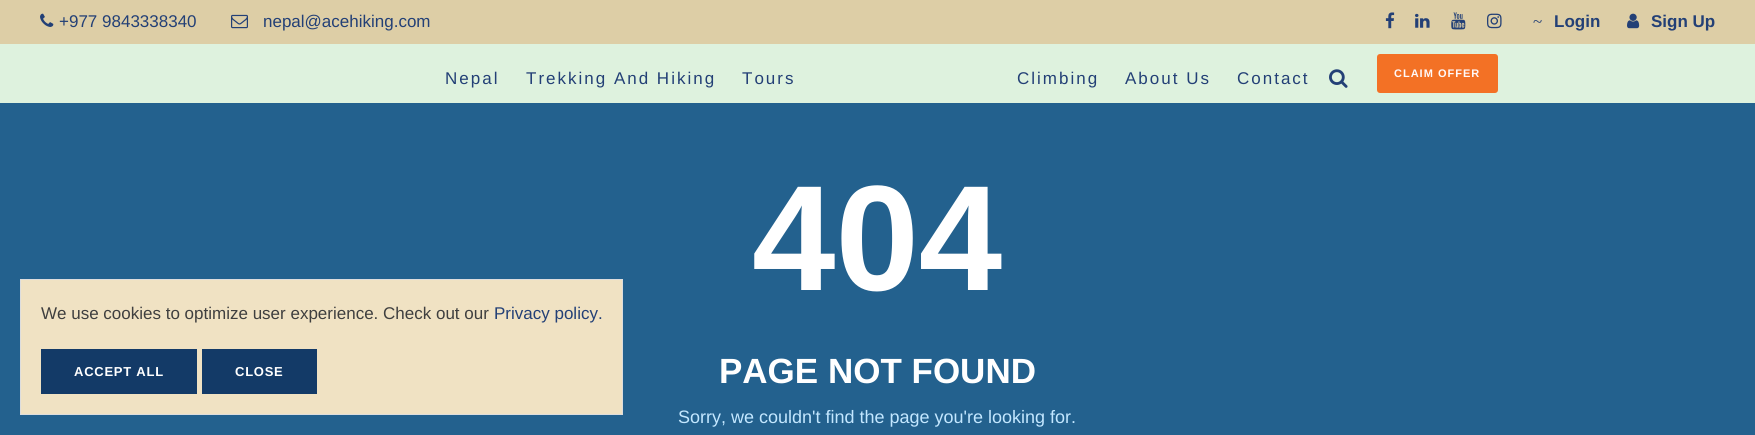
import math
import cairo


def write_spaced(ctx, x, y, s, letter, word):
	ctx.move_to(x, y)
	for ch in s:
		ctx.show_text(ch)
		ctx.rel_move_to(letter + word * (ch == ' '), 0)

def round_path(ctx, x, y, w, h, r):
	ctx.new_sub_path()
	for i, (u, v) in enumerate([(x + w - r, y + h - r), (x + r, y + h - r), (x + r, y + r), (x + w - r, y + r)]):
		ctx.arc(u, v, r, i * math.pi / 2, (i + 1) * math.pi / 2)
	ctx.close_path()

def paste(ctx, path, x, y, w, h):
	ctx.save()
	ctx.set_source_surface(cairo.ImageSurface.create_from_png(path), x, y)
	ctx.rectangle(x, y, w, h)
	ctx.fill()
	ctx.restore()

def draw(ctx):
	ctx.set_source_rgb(0.867, 0.808, 0.651)
	ctx.paint()
	paste(ctx, 'media/1.png', 40, 13, 14, 14)
	ctx.select_font_face('Liberation Sans')
	ctx.set_font_size(17)
	ctx.set_source_rgb(0.137, 0.251, 0.463)
	ctx.move_to(59, 27)
	ctx.show_text('+977 9843338340')
	paste(ctx, 'media/2.png', 231, 14, 17, 15)
	ctx.move_to(263, 27)
	ctx.show_text('nepal@acehiking.com')
	paste(ctx, 'media/3.png', 1385, 12, 10, 17)
	paste(ctx, 'media/4.png', 1415, 13, 15, 15)
	paste(ctx, 'media/5.png', 1451, 12, 15, 18)
	paste(ctx, 'media/6.png', 1487, 13, 15, 16)
	ctx.select_font_face('Liberation Serif')
	ctx.move_to(1533, 27)
	ctx.show_text('~')
	ctx.select_font_face('Liberation Sans', cairo.FONT_SLANT_NORMAL, cairo.FONT_WEIGHT_BOLD)
	ctx.move_to(1554, 27)
	ctx.show_text('Login')
	paste(ctx, 'media/7.png', 1627, 13, 13, 16)
	ctx.move_to(1651, 27)
	ctx.show_text('Sign Up')
	ctx.set_source_rgb(0.871, 0.949, 0.871)
	ctx.rectangle(0, 44, 1755, 59)
	ctx.fill()
	ctx.select_font_face('Liberation Sans')
	ctx.set_source_rgb(0.137, 0.251, 0.463)
	for x, y, s in [
		(445, 84, 'Nepal'),
		(526, 84, 'Trekking And Hiking'),
		(742, 84, 'Tours'),
		(1017, 84, 'Climbing'),
		(1125, 84, 'About Us'),
		(1237, 84, 'Contact'),
	]:
		write_spaced(ctx, x, y, s, 2, 0)
	paste(ctx, 'media/8.png', 1329, 69, 19, 19)
	ctx.set_source_rgb(0.953, 0.443, 0.145)
	round_path(ctx, 1378, 55, 119, 37, 2)
	ctx.fill_preserve()
	ctx.stroke()
	ctx.select_font_face('Liberation Sans', cairo.FONT_SLANT_NORMAL, cairo.FONT_WEIGHT_BOLD)
	ctx.set_font_size(11)
	ctx.set_source_rgb(1, 0.969, 0.969)
	write_spaced(ctx, 1394, 77, 'CLAIM OFFER', 1, 0)
	ctx.set_source_rgb(0.137, 0.38, 0.557)
	ctx.rectangle(0, 103, 1755, 332)
	ctx.fill()
	ctx.set_font_size(150)
	ctx.set_source_rgb(1, 1, 1)
	ctx.move_to(752, 290)
	ctx.show_text('404')
	ctx.set_font_size(35)
	ctx.move_to(719, 383)
	ctx.show_text('PAGE NOT FOUND')
	ctx.select_font_face('Liberation Sans')
	ctx.set_font_size(18)
	ctx.set_source_rgb(0.765, 0.906, 1)
	ctx.move_to(678, 423)
	ctx.show_text('Sorry, we couldn\'t find the page you\'re looking for.')
	ctx.set_source_rgb(0.941, 0.886, 0.765)
	ctx.rectangle(20.5, 279.5, 602, 135)
	ctx.fill_preserve()
	ctx.set_source_rgb(0.867, 0.867, 0.867)
	ctx.set_line_width(1)
	ctx.stroke()
	ctx.set_font_size(17)
	ctx.set_source_rgb(0.247, 0.247, 0.247)
	ctx.move_to(41, 319)
	ctx.show_text('We use cookies to optimize user experience. Check out our')
	ctx.set_source_rgb(0.137, 0.251, 0.463)
	ctx.move_to(494, 319)
	ctx.show_text('Privacy policy.')
	ctx.set_source_rgb(0.075, 0.227, 0.404)
	ctx.rectangle(41, 349, 156, 45)
	ctx.fill()
	ctx.select_font_face('Liberation Sans', cairo.FONT_SLANT_NORMAL, cairo.FONT_WEIGHT_BOLD)
	ctx.set_font_size(13)
	ctx.set_source_rgb(1, 1, 1)
	write_spaced(ctx, 74, 376, 'ACCEPT ALL', 0.75, 0)
	ctx.set_source_rgb(0.075, 0.227, 0.404)
	ctx.rectangle(202, 349, 115, 45)
	ctx.fill()
	ctx.set_source_rgb(1, 1, 1)
	write_spaced(ctx, 235, 376, 'CLOSE', 0.75, 0)


surface = cairo.ImageSurface(cairo.FORMAT_RGB24, 1755, 435)
ctx = cairo.Context(surface)
options = cairo.FontOptions()
options.set_hint_metrics(cairo.HINT_METRICS_OFF)
options.set_hint_style(cairo.HINT_STYLE_NONE)
ctx.set_font_options(options)
ctx.set_miter_limit(4)
draw(ctx)
surface.write_to_png('image.png')
